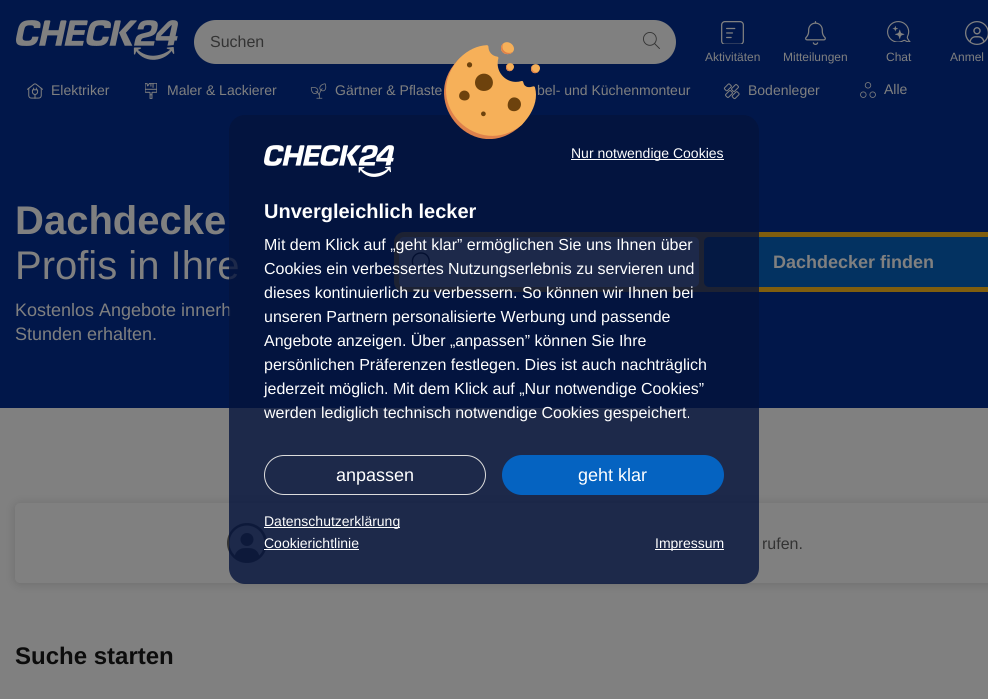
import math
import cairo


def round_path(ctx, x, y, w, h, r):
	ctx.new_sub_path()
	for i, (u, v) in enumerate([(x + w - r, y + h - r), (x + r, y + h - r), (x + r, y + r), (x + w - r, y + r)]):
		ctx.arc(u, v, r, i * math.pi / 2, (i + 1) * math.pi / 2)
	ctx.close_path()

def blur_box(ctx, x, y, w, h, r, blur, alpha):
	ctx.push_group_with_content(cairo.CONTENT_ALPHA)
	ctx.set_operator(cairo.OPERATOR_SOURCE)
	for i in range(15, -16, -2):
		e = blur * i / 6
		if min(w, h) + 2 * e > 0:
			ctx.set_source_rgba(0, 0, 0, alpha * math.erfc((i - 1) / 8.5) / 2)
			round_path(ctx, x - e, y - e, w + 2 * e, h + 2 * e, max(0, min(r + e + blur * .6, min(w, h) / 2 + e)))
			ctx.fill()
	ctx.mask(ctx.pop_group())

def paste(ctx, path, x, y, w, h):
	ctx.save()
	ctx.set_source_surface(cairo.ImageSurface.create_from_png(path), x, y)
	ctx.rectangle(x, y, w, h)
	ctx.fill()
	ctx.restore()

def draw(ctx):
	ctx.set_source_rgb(0.004, 0.09, 0.29)
	ctx.paint()
	paste(ctx, 'media/1.png', 16, 20, 162, 40)
	ctx.set_source_rgb(0.502, 0.502, 0.502)
	round_path(ctx, 194, 20, 482, 44, 22)
	ctx.fill()
	ctx.select_font_face('Liberation Sans')
	ctx.set_font_size(16)
	ctx.set_source_rgb(0.2, 0.2, 0.2)
	ctx.move_to(210, 47)
	ctx.show_text('Suchen')
	paste(ctx, 'media/2.png', 643, 32, 17, 17)
	paste(ctx, 'media/3.png', 721, 21, 23, 23)
	ctx.set_font_size(12)
	ctx.set_source_rgb(0.502, 0.502, 0.502)
	ctx.move_to(705, 61)
	ctx.show_text('Aktivitäten')
	paste(ctx, 'media/4.png', 805, 21, 21, 24)
	ctx.move_to(783, 61)
	ctx.show_text('Mitteilungen')
	paste(ctx, 'media/5.png', 887, 21, 24, 21)
	ctx.move_to(886, 61)
	ctx.show_text('Chat')
	paste(ctx, 'media/6.png', 965, 21, 23, 24)
	ctx.move_to(950, 61)
	ctx.show_text('Anmel')
	paste(ctx, 'media/7.png', 27, 83, 16, 16)
	ctx.set_font_size(14)
	ctx.move_to(51, 95)
	ctx.show_text('Elektriker')
	paste(ctx, 'media/8.png', 145, 83, 12, 16)
	ctx.move_to(167, 95)
	ctx.show_text('Maler & Lackierer')
	paste(ctx, 'media/9.png', 310, 83, 17, 16)
	ctx.move_to(335, 95)
	ctx.show_text('Gärtner & Pflaste')
	ctx.move_to(537, 95)
	ctx.show_text('bel- und Küchenmonteur')
	paste(ctx, 'media/10.png', 723, 83, 17, 17)
	ctx.move_to(748, 95)
	ctx.show_text('Bodenleger')
	paste(ctx, 'media/11.png', 860, 82, 16, 16)
	ctx.move_to(884, 94)
	ctx.show_text('Alle')
	ctx.select_font_face('Liberation Sans', cairo.FONT_SLANT_NORMAL, cairo.FONT_WEIGHT_BOLD)
	ctx.set_font_size(40)
	ctx.move_to(15, 234)
	ctx.show_text('Dachdecke')
	ctx.select_font_face('Liberation Sans')
	ctx.move_to(15, 279)
	ctx.show_text('Profis in Ihre')
	ctx.set_font_size(18)
	ctx.move_to(15, 316)
	ctx.show_text('Kostenlos Angebote innerh')
	ctx.move_to(15, 340)
	ctx.show_text('Stunden erhalten.')
	ctx.set_source_rgb(0.502, 0.369, 0.055)
	round_path(ctx, 396.5, 234.5, 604, 55, 7.5)
	ctx.fill_preserve()
	ctx.set_line_width(5)
	ctx.stroke()
	ctx.set_source_rgb(0.502, 0.502, 0.502)
	round_path(ctx, 399, 237, 300, 50, 5)
	ctx.fill()
	ctx.new_path()
	ctx.move_to(421, 270)
	ctx.curve_to(432, 270, 432, 253, 421, 253)
	ctx.curve_to(409.5, 253, 409.5, 270, 421, 270)
	ctx.close_path()
	ctx.move_to(427, 268)
	ctx.line_to(430, 271.5)
	ctx.set_source_rgb(0, 0, 0)
	ctx.set_line_width(1.4)
	ctx.set_line_cap(cairo.LINE_CAP_ROUND)
	ctx.set_line_join(cairo.LINE_JOIN_ROUND)
	ctx.stroke()
	ctx.set_source_rgb(0.012, 0.196, 0.38)
	round_path(ctx, 704, 237, 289, 50, 5)
	ctx.fill()
	ctx.select_font_face('Liberation Sans', cairo.FONT_SLANT_NORMAL, cairo.FONT_WEIGHT_BOLD)
	ctx.set_source_rgb(0.502, 0.502, 0.502)
	ctx.move_to(773, 268)
	ctx.show_text('Dachdecker finden')
	ctx.rectangle(0, 493, 988, 206)
	ctx.fill()
	ctx.set_source_rgb(0, 0, 0)
	blur_box(ctx, 15, 504, 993, 80, 5, 5, 0.15)
	ctx.set_source_rgb(0.502, 0.502, 0.502)
	ctx.rectangle(0, 408, 988, 85)
	ctx.fill()
	round_path(ctx, 15, 503, 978, 80, 5)
	ctx.fill()
	paste(ctx, 'media/12.png', 227, 523, 40, 40)
	ctx.select_font_face('Liberation Sans')
	ctx.set_font_size(16)
	ctx.set_source_rgb(0.2, 0.2, 0.2)
	ctx.move_to(762, 549)
	ctx.show_text('rufen.')
	ctx.select_font_face('Liberation Sans', cairo.FONT_SLANT_NORMAL, cairo.FONT_WEIGHT_BOLD)
	ctx.set_font_size(24)
	ctx.set_source_rgb(0.047, 0.047, 0.047)
	ctx.move_to(15, 664)
	ctx.show_text('Suche starten')
	ctx.set_source_rgba(0.016, 0.078, 0.235, 0.8)
	round_path(ctx, 229, 115, 530, 469, 16)
	ctx.fill()
	paste(ctx, 'media/13.png', 444, 42, 96, 97)
	paste(ctx, 'media/14.png', 264, 145, 130, 32)
	ctx.set_source_rgb(1, 1, 1)
	ctx.rectangle(571, 159, 153, 1)
	ctx.fill()
	ctx.select_font_face('Liberation Sans')
	ctx.set_font_size(14)
	ctx.move_to(571, 158)
	ctx.show_text('Nur notwendige Cookies')
	ctx.select_font_face('Liberation Sans', cairo.FONT_SLANT_NORMAL, cairo.FONT_WEIGHT_BOLD)
	ctx.set_font_size(20)
	ctx.move_to(264, 218)
	ctx.show_text('Unvergleichlich lecker')
	ctx.select_font_face('Liberation Sans')
	ctx.set_font_size(16)
	for x, y, s in [
		(264, 250, 'Mit dem Klick auf „geht klar” ermöglichen Sie uns Ihnen über'),
		(264, 274, 'Cookies ein verbessertes Nutzungserlebnis zu servieren und'),
		(264, 298, 'dieses kontinuierlich zu verbessern. So können wir Ihnen bei'),
		(264, 322, 'unseren Partnern personalisierte Werbung und passende'),
		(264, 346, 'Angebote anzeigen. Über „anpassen” können Sie Ihre'),
		(264, 370, 'persönlichen Präferenzen festlegen. Dies ist auch nachträglich'),
		(264, 394, 'jederzeit möglich. Mit dem Klick auf „Nur notwendige Cookies”'),
		(264, 418, 'werden lediglich technisch notwendige Cookies gespeichert.'),
	]:
		ctx.move_to(x, y)
		ctx.show_text(s)
	round_path(ctx, 264.5, 455.5, 221, 39, 19.5)
	ctx.set_source_rgb(0.863, 0.863, 0.863)
	ctx.set_line_width(1)
	ctx.set_line_cap(cairo.LINE_CAP_BUTT)
	ctx.set_line_join(cairo.LINE_JOIN_MITER)
	ctx.stroke()
	ctx.set_font_size(18)
	ctx.set_source_rgb(1, 1, 1)
	ctx.move_to(336, 481)
	ctx.show_text('anpassen')
	ctx.set_source_rgb(0.02, 0.388, 0.757)
	round_path(ctx, 502, 455, 222, 40, 20)
	ctx.fill()
	ctx.set_source_rgb(1, 1, 1)
	ctx.move_to(578, 481)
	ctx.show_text('geht klar')
	ctx.rectangle(264, 527, 136, 1)
	ctx.fill()
	ctx.set_font_size(14)
	ctx.move_to(264, 526)
	ctx.show_text('Datenschutzerklärung')
	ctx.move_to(264, 548)
	ctx.show_text('Cookierichtlinie')
	ctx.rectangle(264, 549, 95, 1)
	ctx.fill()
	ctx.rectangle(655, 549, 69, 1)
	ctx.fill()
	ctx.move_to(655, 548)
	ctx.show_text('Impressum')


surface = cairo.ImageSurface(cairo.FORMAT_RGB24, 988, 699)
ctx = cairo.Context(surface)
options = cairo.FontOptions()
options.set_hint_metrics(cairo.HINT_METRICS_OFF)
options.set_hint_style(cairo.HINT_STYLE_NONE)
ctx.set_font_options(options)
ctx.set_miter_limit(4)
draw(ctx)
surface.write_to_png('image.png')
